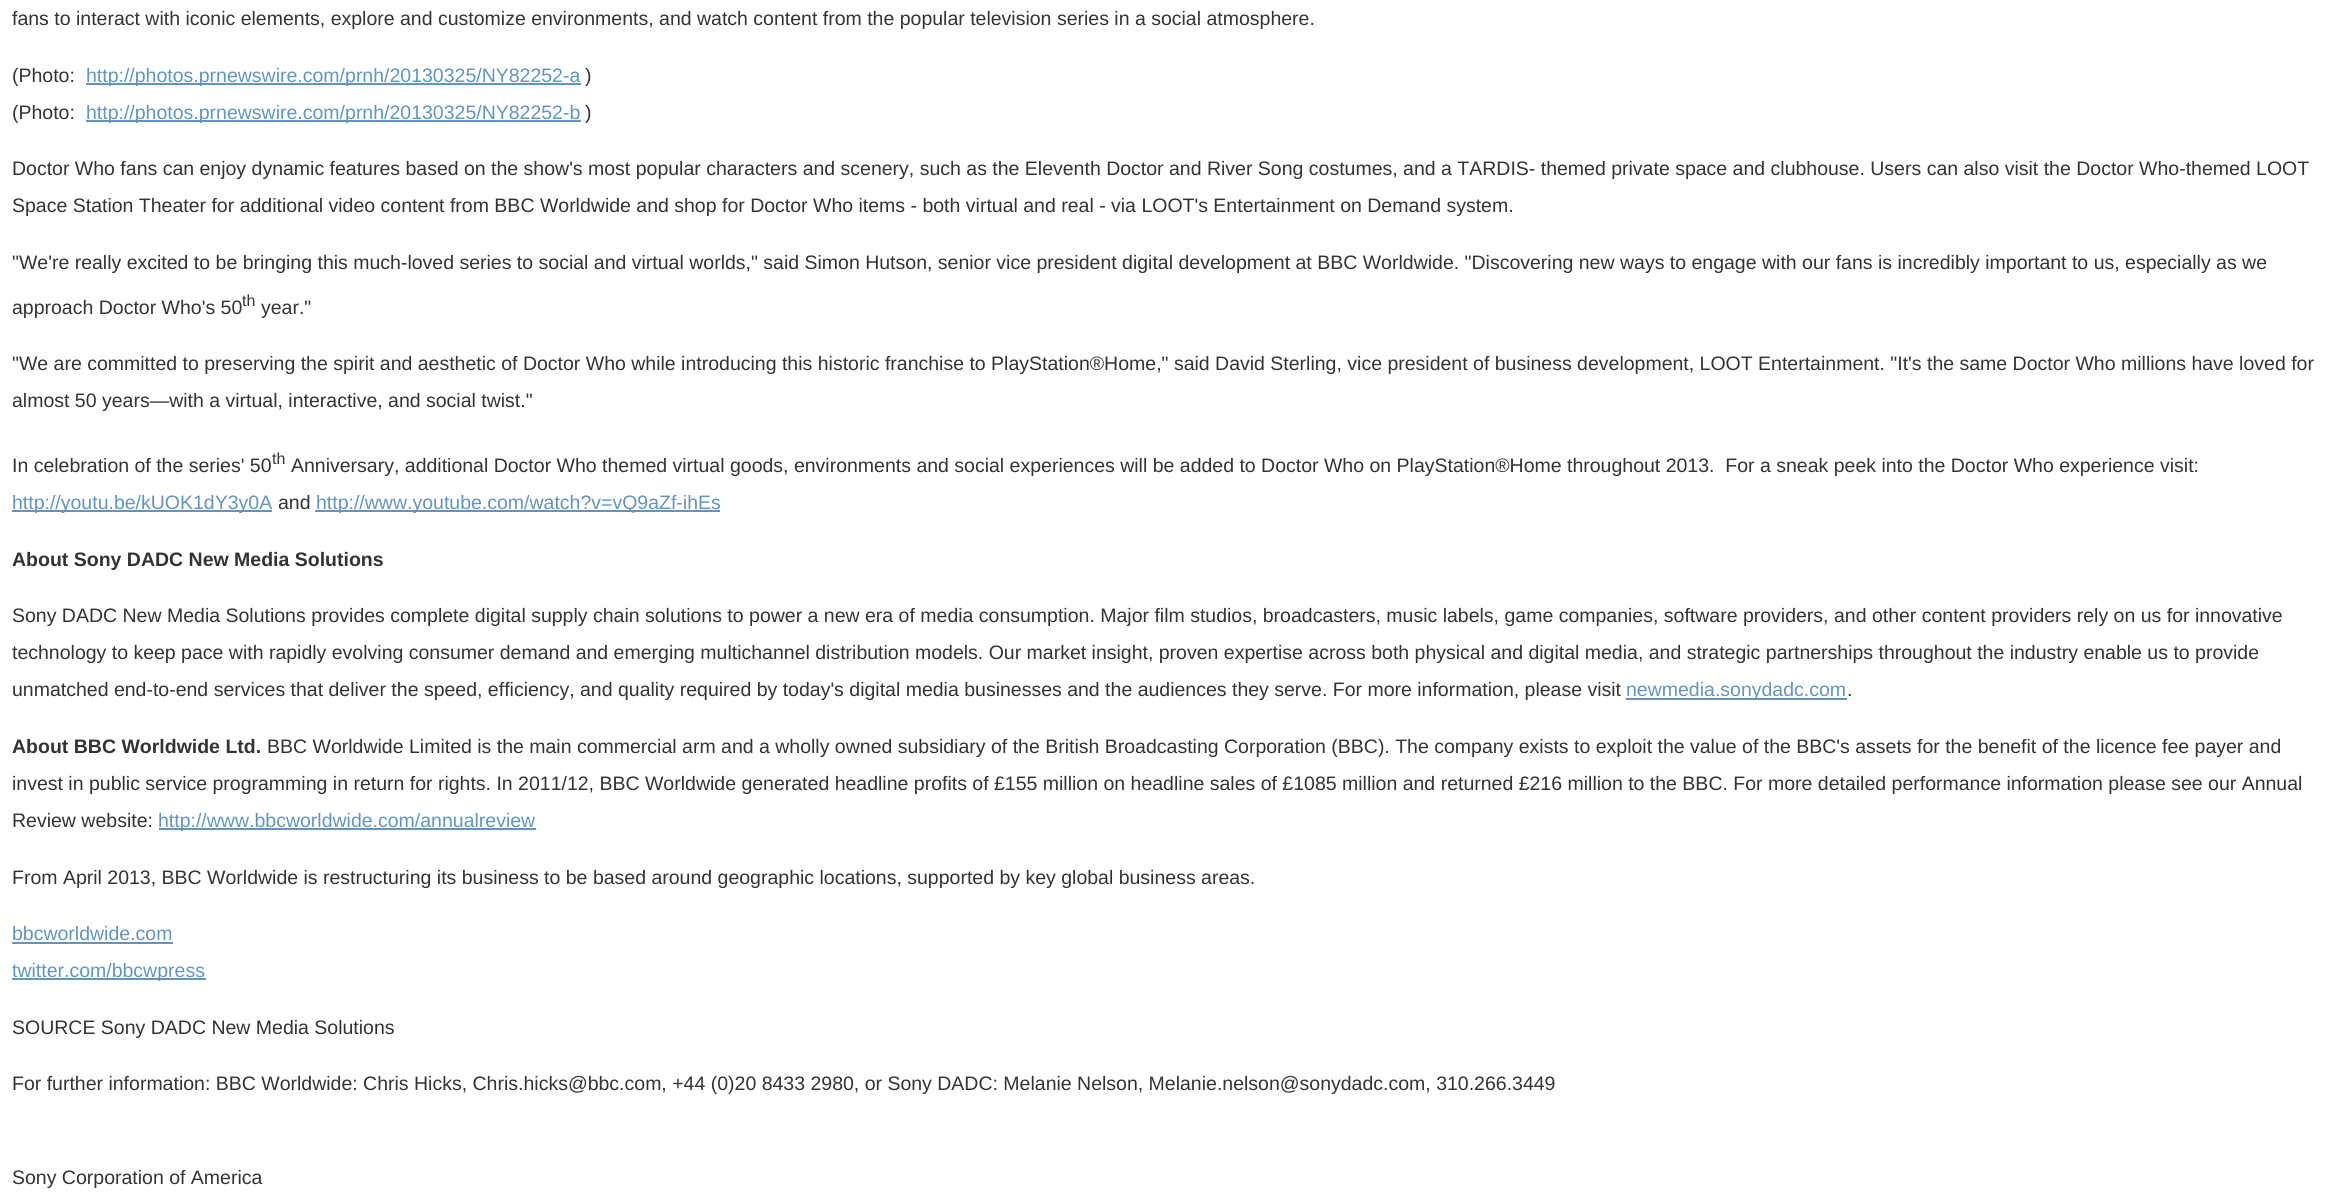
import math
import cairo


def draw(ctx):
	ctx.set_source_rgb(1, 1, 1)
	ctx.paint()
	ctx.select_font_face('Liberation Sans')
	ctx.set_font_size(19.5)
	ctx.set_source_rgb(0.2, 0.2, 0.2)
	ctx.move_to(12, 25)
	ctx.show_text('fans to interact with iconic elements, explore and customize environments, and watch content from the popular television series in a social atmosphere.')
	ctx.move_to(12, 82)
	ctx.show_text('(Photo:')
	ctx.set_source_rgb(0.376, 0.584, 0.765)
	ctx.rectangle(86, 83, 495, 2)
	ctx.fill()
	ctx.move_to(86, 82)
	ctx.show_text('http://photos.prnewswire.com/prnh/20130325/NY82252-a')
	ctx.set_source_rgb(0.2, 0.2, 0.2)
	ctx.move_to(585, 82)
	ctx.show_text(')')
	ctx.move_to(12, 119)
	ctx.show_text('(Photo:')
	ctx.set_source_rgb(0.376, 0.584, 0.765)
	ctx.rectangle(86, 120, 495, 2)
	ctx.fill()
	ctx.move_to(86, 119)
	ctx.show_text('http://photos.prnewswire.com/prnh/20130325/NY82252-b')
	ctx.set_source_rgb(0.2, 0.2, 0.2)
	for x, y, s in [
		(585, 119, ')'),
		(12, 175, 'Doctor Who fans can enjoy dynamic features based on the show\'s most popular characters and scenery, such as the Eleventh Doctor and River Song costumes, and a TARDIS- themed private space and clubhouse. Users can also visit the Doctor Who-themed LOOT'),
		(12, 212, 'Space Station Theater for additional video content from BBC Worldwide and shop for Doctor Who items - both virtual and real - via LOOT\'s Entertainment on Demand system.'),
		(12, 269, '"We\'re really excited to be bringing this much-loved series to social and virtual worlds," said Simon Hutson, senior vice president digital development at BBC Worldwide. "Discovering new ways to engage with our fans is incredibly important to us, especially as we'),
		(12, 314, 'approach Doctor Who\'s 50'),
	]:
		ctx.move_to(x, y)
		ctx.show_text(s)
	ctx.set_font_size(16)
	ctx.move_to(242, 306)
	ctx.show_text('th')
	ctx.set_font_size(19.5)
	for x, y, s in [
		(261, 314, 'year."'),
		(12, 370, '"We are committed to preserving the spirit and aesthetic of Doctor Who while introducing this historic franchise to PlayStation®Home," said David Sterling, vice president of business development, LOOT Entertainment. "It\'s the same Doctor Who millions have loved for'),
		(12, 407, 'almost 50 years—with a virtual, interactive, and social twist."'),
		(12, 472, 'In celebration of the series\' 50'),
	]:
		ctx.move_to(x, y)
		ctx.show_text(s)
	ctx.set_font_size(16)
	ctx.move_to(272, 464)
	ctx.show_text('th')
	ctx.set_font_size(19.5)
	ctx.move_to(291, 472)
	ctx.show_text('Anniversary, additional Doctor Who themed virtual goods, environments and social experiences will be added to Doctor Who on PlayStation®Home throughout 2013.  For a sneak peek into the Doctor Who experience visit:')
	ctx.set_source_rgb(0.376, 0.584, 0.765)
	ctx.rectangle(12, 510, 260, 2)
	ctx.fill()
	ctx.move_to(12, 509)
	ctx.show_text('http://youtu.be/kUOK1dY3y0A')
	ctx.set_source_rgb(0.2, 0.2, 0.2)
	ctx.move_to(278, 509)
	ctx.show_text('and')
	ctx.set_source_rgb(0.376, 0.584, 0.765)
	ctx.rectangle(315, 510, 405, 2)
	ctx.fill()
	ctx.move_to(316, 509)
	ctx.show_text('http://www.youtube.com/watch?v=vQ9aZf-ihEs')
	ctx.select_font_face('Liberation Sans', cairo.FONT_SLANT_NORMAL, cairo.FONT_WEIGHT_BOLD)
	ctx.set_source_rgb(0.2, 0.2, 0.2)
	ctx.move_to(12, 566)
	ctx.show_text('About Sony DADC New Media Solutions')
	ctx.select_font_face('Liberation Sans')
	for x, y, s in [
		(12, 622, 'Sony DADC New Media Solutions provides complete digital supply chain solutions to power a new era of media consumption. Major film studios, broadcasters, music labels, game companies, software providers, and other content providers rely on us for innovative'),
		(12, 659, 'technology to keep pace with rapidly evolving consumer demand and emerging multichannel distribution models. Our market insight, proven expertise across both physical and digital media, and strategic partnerships throughout the industry enable us to provide'),
		(12, 696, 'unmatched end-to-end services that deliver the speed, efficiency, and quality required by today\'s digital media businesses and the audiences they serve. For more information, please visit'),
	]:
		ctx.move_to(x, y)
		ctx.show_text(s)
	ctx.set_source_rgb(0.376, 0.584, 0.765)
	ctx.rectangle(1626, 698, 221, 2)
	ctx.fill()
	ctx.move_to(1626, 696)
	ctx.show_text('newmedia.sonydadc.com')
	ctx.set_source_rgb(0.2, 0.2, 0.2)
	ctx.move_to(1847, 696)
	ctx.show_text('.')
	ctx.select_font_face('Liberation Sans', cairo.FONT_SLANT_NORMAL, cairo.FONT_WEIGHT_BOLD)
	ctx.move_to(12, 753)
	ctx.show_text('About BBC Worldwide Ltd.')
	ctx.select_font_face('Liberation Sans')
	for x, y, s in [
		(267, 753, 'BBC Worldwide Limited is the main commercial arm and a wholly owned subsidiary of the British Broadcasting Corporation (BBC). The company exists to exploit the value of the BBC\'s assets for the benefit of the licence fee payer and'),
		(12, 790, 'invest in public service programming in return for rights. In 2011/12, BBC Worldwide generated headline profits of £155 million on headline sales of £1085 million and returned £216 million to the BBC. For more detailed performance information please see our Annual'),
		(12, 827, 'Review website:'),
	]:
		ctx.move_to(x, y)
		ctx.show_text(s)
	ctx.set_source_rgb(0.376, 0.584, 0.765)
	ctx.rectangle(159, 828, 377, 2)
	ctx.fill()
	ctx.move_to(158, 827)
	ctx.show_text('http://www.bbcworldwide.com/annualreview')
	ctx.set_source_rgb(0.2, 0.2, 0.2)
	ctx.move_to(12, 884)
	ctx.show_text('From April 2013, BBC Worldwide is restructuring its business to be based around geographic locations, supported by key global business areas.')
	ctx.set_source_rgb(0.376, 0.584, 0.765)
	ctx.move_to(12, 940)
	ctx.show_text('bbcworldwide.com')
	ctx.rectangle(12, 942, 161, 2)
	ctx.fill()
	ctx.rectangle(12, 978, 194, 2)
	ctx.fill()
	ctx.move_to(12, 977)
	ctx.show_text('twitter.com/bbcwpress')
	ctx.set_source_rgb(0.2, 0.2, 0.2)
	for x, y, s in [
		(12, 1034, 'SOURCE Sony DADC New Media Solutions'),
		(12, 1090, 'For further information: BBC Worldwide: Chris Hicks, Chris.hicks@bbc.com, +44 (0)20 8433 2980, or Sony DADC: Melanie Nelson, Melanie.nelson@sonydadc.com, 310.266.3449'),
		(12, 1184, 'Sony Corporation of America'),
	]:
		ctx.move_to(x, y)
		ctx.show_text(s)


surface = cairo.ImageSurface(cairo.FORMAT_RGB24, 2337, 1194)
ctx = cairo.Context(surface)
options = cairo.FontOptions()
options.set_hint_metrics(cairo.HINT_METRICS_OFF)
options.set_hint_style(cairo.HINT_STYLE_NONE)
ctx.set_font_options(options)
ctx.set_miter_limit(4)
draw(ctx)
surface.write_to_png('image.png')
